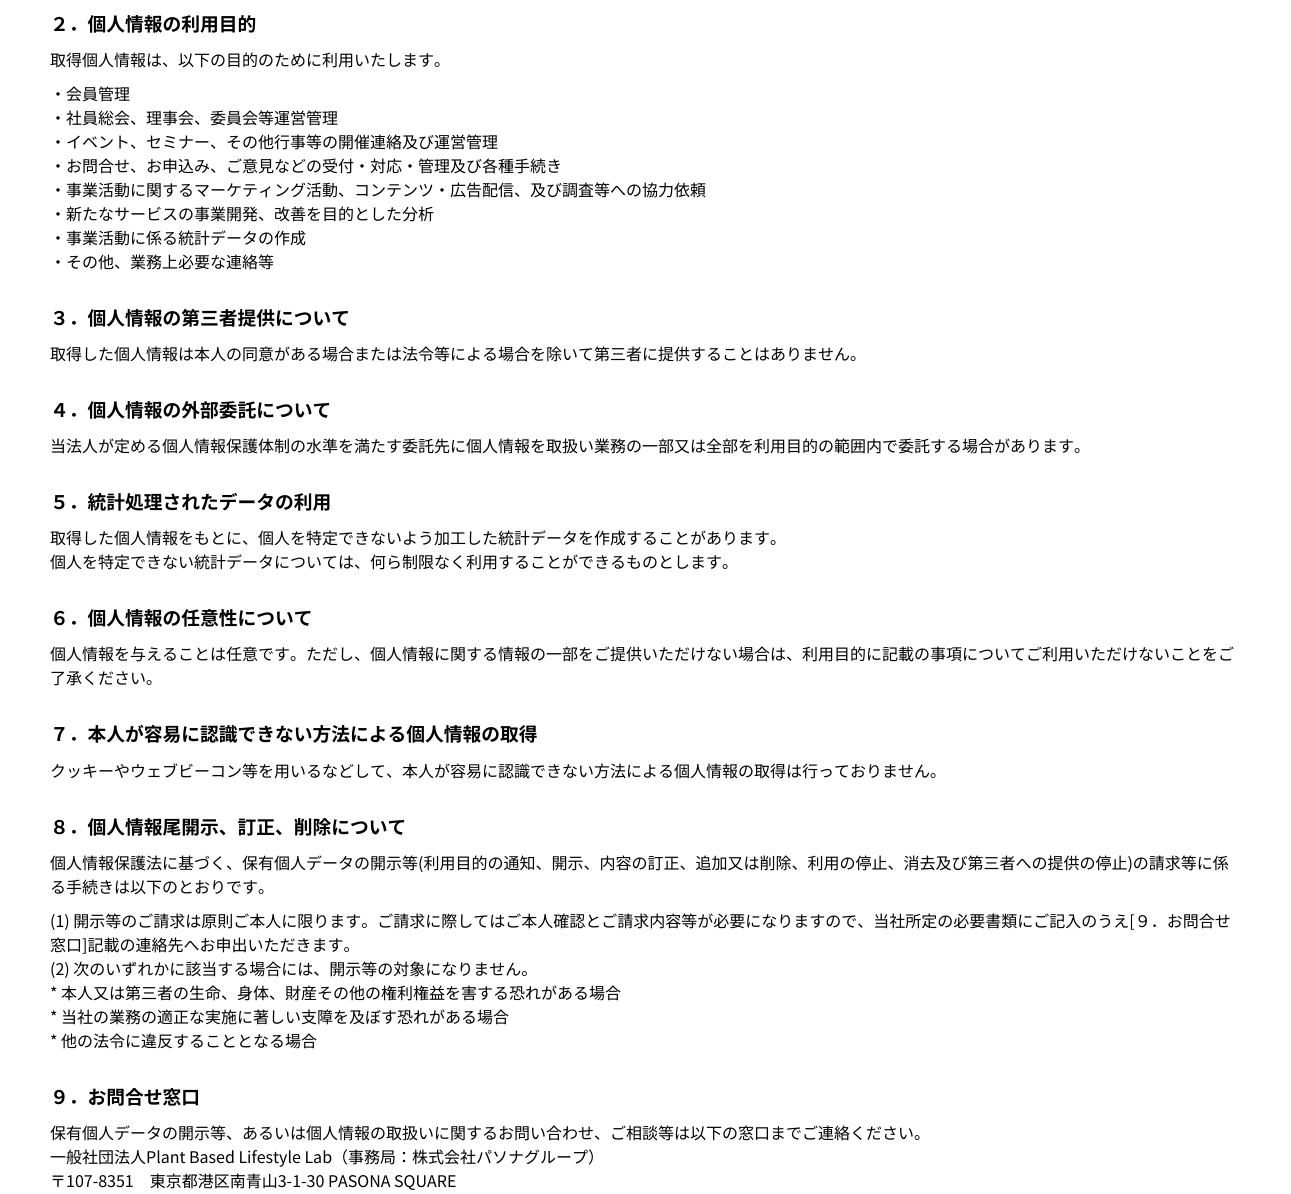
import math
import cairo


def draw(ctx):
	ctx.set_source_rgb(1, 1, 1)
	ctx.paint()
	ctx.select_font_face('Noto Sans JP', cairo.FONT_SLANT_NORMAL, cairo.FONT_WEIGHT_BOLD)
	ctx.set_font_size(18.75)
	ctx.set_source_rgb(0, 0, 0)
	ctx.move_to(50, 31)
	ctx.show_text('２．個人情報の利用目的')
	ctx.select_font_face('Noto Sans JP')
	ctx.set_font_size(16)
	for x, y, s in [
		(50, 66, '取得個人情報は、以下の目的のために利用いたします。'),
		(50, 100, '・会員管理'),
		(50, 124, '・社員総会、理事会、委員会等運営管理'),
		(50, 148, '・イベント、セミナー、その他行事等の開催連絡及び運営管理'),
		(50, 172, '・お問合せ、お申込み、ご意見などの受付・対応・管理及び各種手続き'),
		(50, 196, '・事業活動に関するマーケティング活動、コンテンツ・広告配信、及び調査等への協力依頼'),
		(50, 220, '・新たなサービスの事業開発、改善を目的とした分析'),
		(50, 244, '・事業活動に係る統計データの作成'),
		(50, 268, '・その他、業務上必要な連絡等'),
	]:
		ctx.move_to(x, y)
		ctx.show_text(s)
	ctx.select_font_face('Noto Sans JP', cairo.FONT_SLANT_NORMAL, cairo.FONT_WEIGHT_BOLD)
	ctx.set_font_size(18.75)
	ctx.move_to(50, 325)
	ctx.show_text('３．個人情報の第三者提供について')
	ctx.select_font_face('Noto Sans JP')
	ctx.set_font_size(16)
	ctx.move_to(50, 360)
	ctx.show_text('取得した個人情報は本人の同意がある場合または法令等による場合を除いて第三者に提供することはありません。')
	ctx.select_font_face('Noto Sans JP', cairo.FONT_SLANT_NORMAL, cairo.FONT_WEIGHT_BOLD)
	ctx.set_font_size(18.75)
	ctx.move_to(50, 417)
	ctx.show_text('４．個人情報の外部委託について')
	ctx.select_font_face('Noto Sans JP')
	ctx.set_font_size(16)
	ctx.move_to(50, 452)
	ctx.show_text('当法人が定める個人情報保護体制の水準を満たす委託先に個人情報を取扱い業務の一部又は全部を利用目的の範囲内で委託する場合があります。')
	ctx.select_font_face('Noto Sans JP', cairo.FONT_SLANT_NORMAL, cairo.FONT_WEIGHT_BOLD)
	ctx.set_font_size(18.75)
	ctx.move_to(50, 509)
	ctx.show_text('５．統計処理されたデータの利用')
	ctx.select_font_face('Noto Sans JP')
	ctx.set_font_size(16)
	ctx.move_to(50, 544)
	ctx.show_text('取得した個人情報をもとに、個人を特定できないよう加工した統計データを作成することがあります。')
	ctx.move_to(50, 568)
	ctx.show_text('個人を特定できない統計データについては、何ら制限なく利用することができるものとします。')
	ctx.select_font_face('Noto Sans JP', cairo.FONT_SLANT_NORMAL, cairo.FONT_WEIGHT_BOLD)
	ctx.set_font_size(18.75)
	ctx.move_to(50, 625)
	ctx.show_text('６．個人情報の任意性について')
	ctx.select_font_face('Noto Sans JP')
	ctx.set_font_size(16)
	ctx.move_to(50, 660)
	ctx.show_text('個人情報を与えることは任意です。ただし、個人情報に関する情報の一部をご提供いただけない場合は、利用目的に記載の事項についてご利用いただけないことをご')
	ctx.move_to(50, 684)
	ctx.show_text('了承ください。')
	ctx.select_font_face('Noto Sans JP', cairo.FONT_SLANT_NORMAL, cairo.FONT_WEIGHT_BOLD)
	ctx.set_font_size(18.75)
	ctx.move_to(50, 741)
	ctx.show_text('７．本人が容易に認識できない方法による個人情報の取得')
	ctx.select_font_face('Noto Sans JP')
	ctx.set_font_size(16)
	ctx.move_to(50, 777)
	ctx.show_text('クッキーやウェブビーコン等を用いるなどして、本人が容易に認識できない方法による個人情報の取得は行っておりません。')
	ctx.select_font_face('Noto Sans JP', cairo.FONT_SLANT_NORMAL, cairo.FONT_WEIGHT_BOLD)
	ctx.set_font_size(18.75)
	ctx.move_to(50, 834)
	ctx.show_text('８．個人情報尾開示、訂正、削除について')
	ctx.select_font_face('Noto Sans JP')
	ctx.set_font_size(16)
	for x, y, s in [
		(50, 869, '個人情報保護法に基づく、保有個人データの開示等(利用目的の通知、開示、内容の訂正、追加又は削除、利用の停止、消去及び第三者への提供の停止)の請求等に係'),
		(50, 893, 'る手続きは以下のとおりです。'),
		(50, 927, '(1) 開示等のご請求は原則ご本人に限ります。ご請求に際してはご本人確認とご請求内容等が必要になりますので、当社所定の必要書類にご記入のうえ[９．お問合せ'),
		(50, 951, '窓口]記載の連絡先へお申出いただきます。'),
		(50, 975, '(2) 次のいずれかに該当する場合には、開示等の対象になりません。'),
		(50, 999, '* 本人又は第三者の生命、身体、財産その他の権利権益を害する恐れがある場合'),
		(50, 1023, '* 当社の業務の適正な実施に著しい支障を及ぼす恐れがある場合'),
		(50, 1047, '* 他の法令に違反することとなる場合'),
	]:
		ctx.move_to(x, y)
		ctx.show_text(s)
	ctx.select_font_face('Noto Sans JP', cairo.FONT_SLANT_NORMAL, cairo.FONT_WEIGHT_BOLD)
	ctx.set_font_size(18.75)
	ctx.move_to(50, 1104)
	ctx.show_text('９．お問合せ窓口')
	ctx.select_font_face('Noto Sans JP')
	ctx.set_font_size(16)
	for x, y, s in [
		(50, 1139, '保有個人データの開示等、あるいは個人情報の取扱いに関するお問い合わせ、ご相談等は以下の窓口までご連絡ください。'),
		(50, 1163, '一般社団法人Plant Based Lifestyle Lab（事務局：株式会社パソナグループ）'),
		(50, 1187, '〒107-8351　東京都港区南青山3-1-30 PASONA SQUARE'),
	]:
		ctx.move_to(x, y)
		ctx.show_text(s)


surface = cairo.ImageSurface(cairo.FORMAT_RGB24, 1291, 1194)
ctx = cairo.Context(surface)
options = cairo.FontOptions()
options.set_hint_metrics(cairo.HINT_METRICS_OFF)
options.set_hint_style(cairo.HINT_STYLE_NONE)
ctx.set_font_options(options)
ctx.set_miter_limit(4)
draw(ctx)
surface.write_to_png('image.png')
